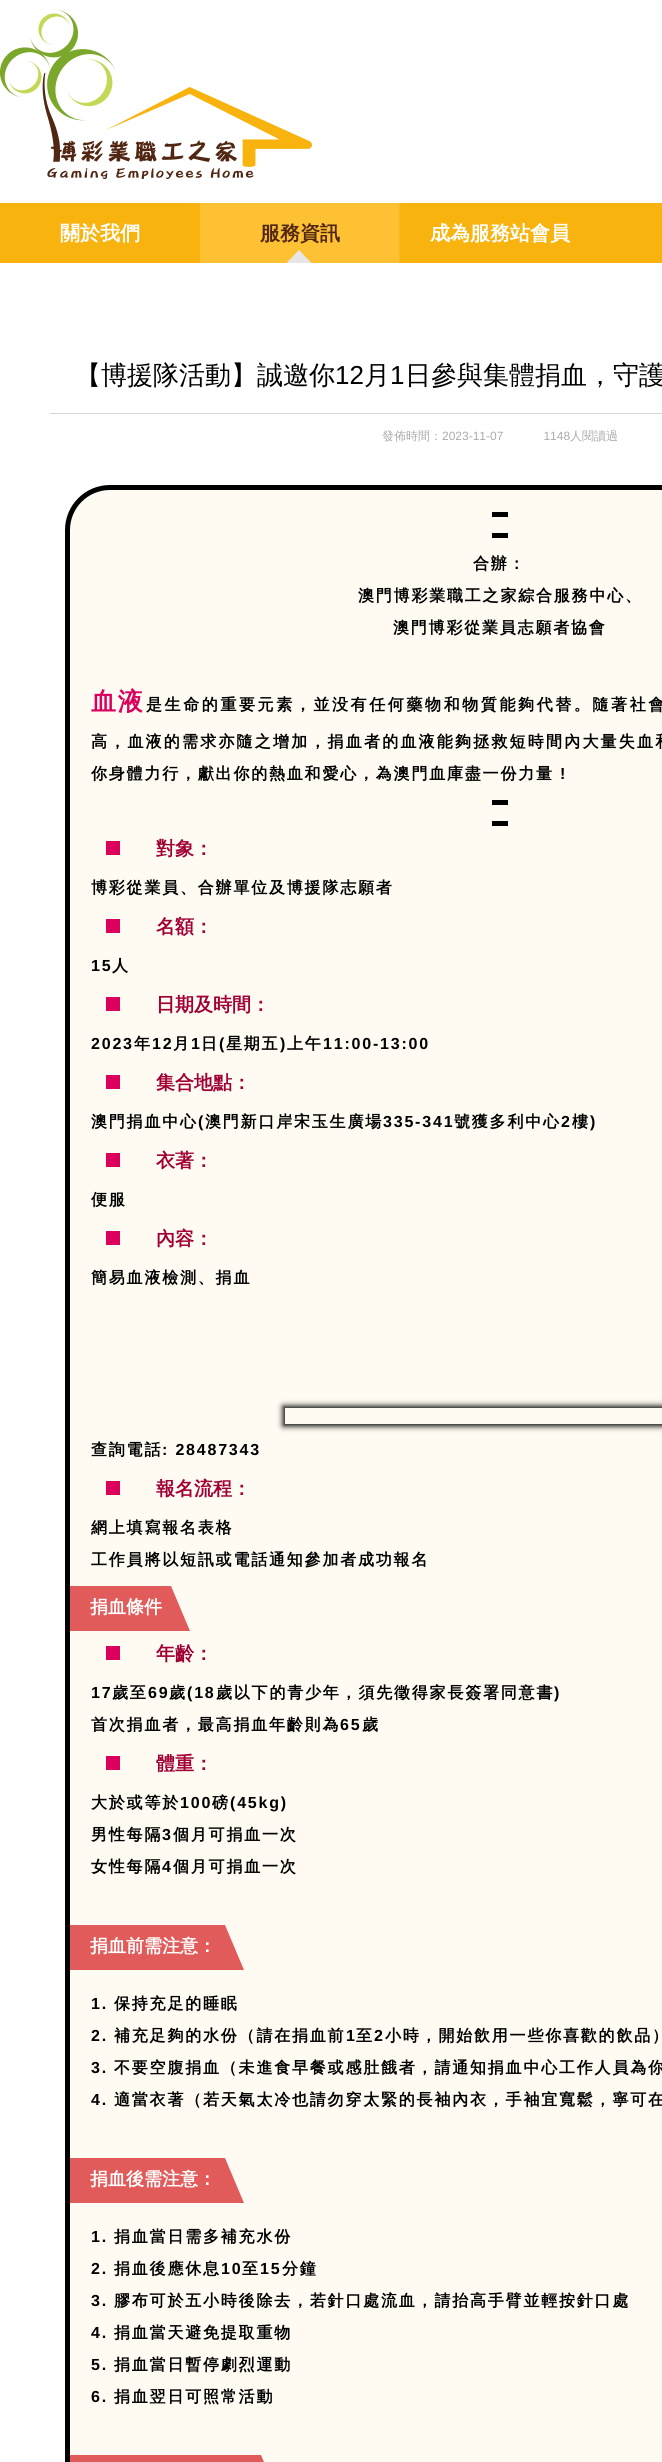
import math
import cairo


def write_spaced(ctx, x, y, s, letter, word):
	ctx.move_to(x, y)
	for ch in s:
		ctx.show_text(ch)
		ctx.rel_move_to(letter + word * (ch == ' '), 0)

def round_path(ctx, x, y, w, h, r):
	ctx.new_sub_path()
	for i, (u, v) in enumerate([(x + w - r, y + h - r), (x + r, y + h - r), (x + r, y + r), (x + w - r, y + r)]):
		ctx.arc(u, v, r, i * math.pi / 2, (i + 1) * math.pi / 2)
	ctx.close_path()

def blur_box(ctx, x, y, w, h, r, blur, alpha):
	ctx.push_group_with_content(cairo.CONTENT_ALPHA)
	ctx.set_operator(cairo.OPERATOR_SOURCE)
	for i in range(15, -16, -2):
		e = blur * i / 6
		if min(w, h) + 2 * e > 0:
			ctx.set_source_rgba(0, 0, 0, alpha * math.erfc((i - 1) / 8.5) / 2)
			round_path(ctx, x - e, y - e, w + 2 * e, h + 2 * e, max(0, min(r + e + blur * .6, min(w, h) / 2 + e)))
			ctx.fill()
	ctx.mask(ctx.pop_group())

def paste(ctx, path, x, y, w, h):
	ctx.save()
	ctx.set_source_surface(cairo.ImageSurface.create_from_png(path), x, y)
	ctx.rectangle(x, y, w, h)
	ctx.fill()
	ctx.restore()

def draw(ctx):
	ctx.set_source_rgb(1, 1, 1)
	ctx.paint()
	paste(ctx, 'media/1.png', 0, 10, 312, 169)
	ctx.set_source_rgb(0.973, 0.702, 0.055)
	ctx.rectangle(0, 203, 200, 60)
	ctx.fill()
	ctx.select_font_face('WenQuanYi Zen Hei', cairo.FONT_SLANT_NORMAL, cairo.FONT_WEIGHT_BOLD)
	ctx.set_font_size(20)
	ctx.set_source_rgb(1, 1, 1)
	ctx.move_to(60, 240)
	ctx.show_text('關於我們')
	paste(ctx, 'media/2.png', 200, 203, 200, 60)
	ctx.set_source_rgb(0.318, 0.149, 0.071)
	ctx.move_to(260, 240)
	ctx.show_text('服務資訊')
	ctx.set_source_rgb(0.973, 0.702, 0.055)
	ctx.rectangle(400, 203, 262, 60)
	ctx.fill()
	ctx.set_source_rgb(1, 1, 1)
	ctx.move_to(430, 240)
	ctx.show_text('成為服務站會員')
	ctx.select_font_face('WenQuanYi Zen Hei Medium')
	ctx.set_font_size(26)
	ctx.set_source_rgb(0, 0, 0)
	ctx.move_to(75, 384)
	ctx.show_text('【博援隊活動】誠邀你')
	ctx.select_font_face('Liberation Sans')
	ctx.move_to(335, 384)
	ctx.show_text('12')
	ctx.select_font_face('WenQuanYi Zen Hei Medium')
	ctx.move_to(364, 384)
	ctx.show_text('月')
	ctx.select_font_face('Liberation Sans')
	ctx.move_to(390, 384)
	ctx.show_text('1')
	ctx.select_font_face('WenQuanYi Zen Hei Medium')
	ctx.move_to(405, 384)
	ctx.show_text('日參與集體捐血，守護')
	ctx.set_source_rgb(0.839, 0.839, 0.839)
	ctx.rectangle(50, 413, 612, 1)
	ctx.fill()
	ctx.set_font_size(12)
	ctx.set_source_rgb(0.671, 0.671, 0.671)
	ctx.move_to(382, 440)
	ctx.show_text('發佈時間：')
	ctx.select_font_face('Liberation Sans')
	ctx.move_to(442, 440)
	ctx.show_text('2023-11-07            1148')
	ctx.select_font_face('WenQuanYi Zen Hei Medium')
	ctx.move_to(570, 440)
	ctx.show_text('人閱讀過')
	ctx.set_source_rgb(1, 0.984, 0.953)
	round_path(ctx, 67.5, 487.5, 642, 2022, 42.5)
	ctx.fill_preserve()
	ctx.set_source_rgb(0, 0, 0)
	ctx.set_line_width(5)
	ctx.stroke()
	ctx.rectangle(492, 512, 16, 5)
	ctx.fill()
	ctx.rectangle(492, 533, 16, 5)
	ctx.fill()
	ctx.select_font_face('WenQuanYi Zen Hei', cairo.FONT_SLANT_NORMAL, cairo.FONT_WEIGHT_BOLD)
	ctx.set_font_size(16)
	for x, y, s in [
		(473, 569, '合辦：'),
		(358, 601, '澳門博彩業職工之家綜合服務中心、'),
		(393, 633, '澳門博彩從業員志願者協會'),
	]:
		write_spaced(ctx, x, y, s, 1.8, 0)
	ctx.set_font_size(25)
	ctx.set_source_rgb(0.859, 0, 0.357)
	write_spaced(ctx, 91, 710, '血液', 1.8, 0)
	ctx.set_font_size(16)
	ctx.set_source_rgb(0, 0, 0)
	write_spaced(ctx, 146, 710, '是生命的重要元素，並没有任何藥物和物質能夠代替。隨著社會', 2.6, 0)
	write_spaced(ctx, 91, 747, '高，血液的需求亦隨之增加，捐血者的血液能夠拯救短時間內大量失血和', 2.2, 0)
	write_spaced(ctx, 91, 779, '你身體力行，獻出你的熱血和愛心，為澳門血庫盡一份力量', 1.8, 0)
	ctx.select_font_face('Liberation Sans', cairo.FONT_SLANT_NORMAL, cairo.FONT_WEIGHT_BOLD)
	write_spaced(ctx, 560, 779, '!', 1.8, 0)
	ctx.rectangle(492, 800, 16, 5)
	ctx.rectangle(492, 821, 16, 5)
	ctx.fill()
	ctx.set_source_rgb(0.859, 0, 0.357)
	ctx.rectangle(106, 841, 14, 14)
	ctx.fill()
	ctx.select_font_face('WenQuanYi Zen Hei', cairo.FONT_SLANT_NORMAL, cairo.FONT_WEIGHT_BOLD)
	ctx.set_font_size(19)
	ctx.set_source_rgb(0.631, 0, 0.208)
	ctx.move_to(156, 855)
	ctx.show_text('對象：')
	ctx.set_font_size(16)
	ctx.set_source_rgb(0, 0, 0)
	write_spaced(ctx, 91, 893, '博彩從業員、合辦單位及博援隊志願者', 1.8, 0)
	ctx.set_source_rgb(0.859, 0, 0.357)
	ctx.rectangle(106, 919, 14, 14)
	ctx.fill()
	ctx.set_font_size(19)
	ctx.set_source_rgb(0.631, 0, 0.208)
	ctx.move_to(156, 933)
	ctx.show_text('名額：')
	ctx.select_font_face('Liberation Sans', cairo.FONT_SLANT_NORMAL, cairo.FONT_WEIGHT_BOLD)
	ctx.set_font_size(16)
	ctx.set_source_rgb(0, 0, 0)
	write_spaced(ctx, 91, 971, '15', 1.8, 0)
	ctx.select_font_face('WenQuanYi Zen Hei', cairo.FONT_SLANT_NORMAL, cairo.FONT_WEIGHT_BOLD)
	write_spaced(ctx, 112, 971, '人', 1.8, 0)
	ctx.set_source_rgb(0.859, 0, 0.357)
	ctx.rectangle(106, 997, 14, 14)
	ctx.fill()
	ctx.set_font_size(19)
	ctx.set_source_rgb(0.631, 0, 0.208)
	ctx.move_to(156, 1011)
	ctx.show_text('日期及時間：')
	ctx.select_font_face('Liberation Sans', cairo.FONT_SLANT_NORMAL, cairo.FONT_WEIGHT_BOLD)
	ctx.set_font_size(16)
	ctx.set_source_rgb(0, 0, 0)
	write_spaced(ctx, 91, 1049, '2023', 1.8, 0)
	ctx.select_font_face('WenQuanYi Zen Hei', cairo.FONT_SLANT_NORMAL, cairo.FONT_WEIGHT_BOLD)
	write_spaced(ctx, 134, 1049, '年', 1.8, 0)
	ctx.select_font_face('Liberation Sans', cairo.FONT_SLANT_NORMAL, cairo.FONT_WEIGHT_BOLD)
	write_spaced(ctx, 152, 1049, '12', 1.8, 0)
	ctx.select_font_face('WenQuanYi Zen Hei', cairo.FONT_SLANT_NORMAL, cairo.FONT_WEIGHT_BOLD)
	write_spaced(ctx, 173, 1049, '月', 1.8, 0)
	ctx.select_font_face('Liberation Sans', cairo.FONT_SLANT_NORMAL, cairo.FONT_WEIGHT_BOLD)
	write_spaced(ctx, 191, 1049, '1', 1.8, 0)
	ctx.select_font_face('WenQuanYi Zen Hei', cairo.FONT_SLANT_NORMAL, cairo.FONT_WEIGHT_BOLD)
	write_spaced(ctx, 201, 1049, '日', 1.8, 0)
	ctx.select_font_face('Liberation Sans', cairo.FONT_SLANT_NORMAL, cairo.FONT_WEIGHT_BOLD)
	write_spaced(ctx, 219, 1049, '(', 1.8, 0)
	ctx.select_font_face('WenQuanYi Zen Hei', cairo.FONT_SLANT_NORMAL, cairo.FONT_WEIGHT_BOLD)
	write_spaced(ctx, 226, 1049, '星期五', 1.8, 0)
	ctx.select_font_face('Liberation Sans', cairo.FONT_SLANT_NORMAL, cairo.FONT_WEIGHT_BOLD)
	write_spaced(ctx, 280, 1049, ')', 1.8, 0)
	ctx.select_font_face('WenQuanYi Zen Hei', cairo.FONT_SLANT_NORMAL, cairo.FONT_WEIGHT_BOLD)
	write_spaced(ctx, 287, 1049, '上午', 1.8, 0)
	ctx.select_font_face('Liberation Sans', cairo.FONT_SLANT_NORMAL, cairo.FONT_WEIGHT_BOLD)
	write_spaced(ctx, 323, 1049, '11:00-13:00', 1.8, 0)
	ctx.set_source_rgb(0.859, 0, 0.357)
	ctx.rectangle(106, 1075, 14, 14)
	ctx.fill()
	ctx.select_font_face('WenQuanYi Zen Hei', cairo.FONT_SLANT_NORMAL, cairo.FONT_WEIGHT_BOLD)
	ctx.set_font_size(19)
	ctx.set_source_rgb(0.631, 0, 0.208)
	ctx.move_to(156, 1089)
	ctx.show_text('集合地點：')
	ctx.set_font_size(16)
	ctx.set_source_rgb(0, 0, 0)
	write_spaced(ctx, 91, 1127, '澳門捐血中心', 1.8, 0)
	ctx.select_font_face('Liberation Sans', cairo.FONT_SLANT_NORMAL, cairo.FONT_WEIGHT_BOLD)
	write_spaced(ctx, 198, 1127, '(', 1.8, 0)
	ctx.select_font_face('WenQuanYi Zen Hei', cairo.FONT_SLANT_NORMAL, cairo.FONT_WEIGHT_BOLD)
	write_spaced(ctx, 205, 1127, '澳門新口岸宋玉生廣場', 1.8, 0)
	ctx.select_font_face('Liberation Sans', cairo.FONT_SLANT_NORMAL, cairo.FONT_WEIGHT_BOLD)
	write_spaced(ctx, 383, 1127, '335-341', 1.8, 0)
	ctx.select_font_face('WenQuanYi Zen Hei', cairo.FONT_SLANT_NORMAL, cairo.FONT_WEIGHT_BOLD)
	write_spaced(ctx, 454, 1127, '號獲多利中心', 1.8, 0)
	ctx.select_font_face('Liberation Sans', cairo.FONT_SLANT_NORMAL, cairo.FONT_WEIGHT_BOLD)
	write_spaced(ctx, 561, 1127, '2', 1.8, 0)
	ctx.select_font_face('WenQuanYi Zen Hei', cairo.FONT_SLANT_NORMAL, cairo.FONT_WEIGHT_BOLD)
	write_spaced(ctx, 572, 1127, '樓', 1.8, 0)
	ctx.select_font_face('Liberation Sans', cairo.FONT_SLANT_NORMAL, cairo.FONT_WEIGHT_BOLD)
	write_spaced(ctx, 590, 1127, ')', 1.8, 0)
	ctx.set_source_rgb(0.859, 0, 0.357)
	ctx.rectangle(106, 1153, 14, 14)
	ctx.fill()
	ctx.select_font_face('WenQuanYi Zen Hei', cairo.FONT_SLANT_NORMAL, cairo.FONT_WEIGHT_BOLD)
	ctx.set_font_size(19)
	ctx.set_source_rgb(0.631, 0, 0.208)
	ctx.move_to(156, 1167)
	ctx.show_text('衣著：')
	ctx.set_font_size(16)
	ctx.set_source_rgb(0, 0, 0)
	write_spaced(ctx, 91, 1205, '便服', 1.8, 0)
	ctx.set_source_rgb(0.859, 0, 0.357)
	ctx.rectangle(106, 1231, 14, 14)
	ctx.fill()
	ctx.set_font_size(19)
	ctx.set_source_rgb(0.631, 0, 0.208)
	ctx.move_to(156, 1245)
	ctx.show_text('內容：')
	ctx.set_font_size(16)
	ctx.set_source_rgb(0, 0, 0)
	write_spaced(ctx, 91, 1283, '簡易血液檢測、捐血', 1.8, 0)
	ctx.save()
	ctx.set_fill_rule(cairo.FILL_RULE_EVEN_ODD)
	ctx.new_path()
	ctx.move_to(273, 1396)
	ctx.line_to(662, 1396)
	ctx.line_to(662, 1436)
	ctx.line_to(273, 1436)
	ctx.close_path()
	ctx.move_to(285, 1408)
	ctx.line_to(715, 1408)
	ctx.line_to(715, 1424)
	ctx.line_to(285, 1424)
	ctx.close_path()
	ctx.clip()
	ctx.set_source_rgb(0, 0, 0)
	blur_box(ctx, 283, 1406, 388, 20, 0, 3, 1)
	ctx.restore()
	write_spaced(ctx, 91, 1455, '查詢電話', 1.8, 0)
	ctx.select_font_face('Liberation Sans', cairo.FONT_SLANT_NORMAL, cairo.FONT_WEIGHT_BOLD)
	write_spaced(ctx, 162, 1455, ': 28487343', 1.8, 0)
	ctx.set_source_rgb(0.859, 0, 0.357)
	ctx.rectangle(106, 1481, 14, 14)
	ctx.fill()
	ctx.select_font_face('WenQuanYi Zen Hei', cairo.FONT_SLANT_NORMAL, cairo.FONT_WEIGHT_BOLD)
	ctx.set_font_size(19)
	ctx.set_source_rgb(0.631, 0, 0.208)
	ctx.move_to(156, 1495)
	ctx.show_text('報名流程：')
	ctx.set_font_size(16)
	ctx.set_source_rgb(0, 0, 0)
	write_spaced(ctx, 91, 1533, '網上填寫報名表格', 1.8, 0)
	write_spaced(ctx, 91, 1565, '工作員將以短訊或電話通知參加者成功報名', 1.8, 0)
	ctx.set_source_rgb(0.886, 0.357, 0.357)
	ctx.rectangle(70, 1586, 101, 45)
	ctx.fill()
	ctx.set_font_size(18)
	ctx.set_source_rgb(1, 1, 1)
	ctx.move_to(90, 1613)
	ctx.show_text('捐血條件')
	ctx.set_source_rgb(0.886, 0.357, 0.357)
	ctx.new_path()
	ctx.move_to(171, 1631)
	ctx.line_to(171, 1586)
	ctx.line_to(190, 1631)
	ctx.close_path()
	ctx.fill()
	ctx.set_source_rgb(0.859, 0, 0.357)
	ctx.rectangle(106, 1646, 14, 14)
	ctx.fill()
	ctx.set_font_size(19)
	ctx.set_source_rgb(0.631, 0, 0.208)
	ctx.move_to(156, 1660)
	ctx.show_text('年齡：')
	ctx.select_font_face('Liberation Sans', cairo.FONT_SLANT_NORMAL, cairo.FONT_WEIGHT_BOLD)
	ctx.set_font_size(16)
	ctx.set_source_rgb(0, 0, 0)
	write_spaced(ctx, 91, 1698, '17', 1.8, 0)
	ctx.select_font_face('WenQuanYi Zen Hei', cairo.FONT_SLANT_NORMAL, cairo.FONT_WEIGHT_BOLD)
	write_spaced(ctx, 112, 1698, '歲至', 1.8, 0)
	ctx.select_font_face('Liberation Sans', cairo.FONT_SLANT_NORMAL, cairo.FONT_WEIGHT_BOLD)
	write_spaced(ctx, 148, 1698, '69', 1.8, 0)
	ctx.select_font_face('WenQuanYi Zen Hei', cairo.FONT_SLANT_NORMAL, cairo.FONT_WEIGHT_BOLD)
	write_spaced(ctx, 169, 1698, '歲', 1.8, 0)
	ctx.select_font_face('Liberation Sans', cairo.FONT_SLANT_NORMAL, cairo.FONT_WEIGHT_BOLD)
	write_spaced(ctx, 187, 1698, '(18', 1.8, 0)
	ctx.select_font_face('WenQuanYi Zen Hei', cairo.FONT_SLANT_NORMAL, cairo.FONT_WEIGHT_BOLD)
	write_spaced(ctx, 216, 1698, '歲以下的青少年，須先徵得家長簽署同意書', 1.8, 0)
	ctx.select_font_face('Liberation Sans', cairo.FONT_SLANT_NORMAL, cairo.FONT_WEIGHT_BOLD)
	write_spaced(ctx, 554, 1698, ')', 1.8, 0)
	ctx.select_font_face('WenQuanYi Zen Hei', cairo.FONT_SLANT_NORMAL, cairo.FONT_WEIGHT_BOLD)
	write_spaced(ctx, 91, 1730, '首次捐血者，最高捐血年齡則為', 1.8, 0)
	ctx.select_font_face('Liberation Sans', cairo.FONT_SLANT_NORMAL, cairo.FONT_WEIGHT_BOLD)
	write_spaced(ctx, 340, 1730, '65', 1.8, 0)
	ctx.select_font_face('WenQuanYi Zen Hei', cairo.FONT_SLANT_NORMAL, cairo.FONT_WEIGHT_BOLD)
	write_spaced(ctx, 362, 1730, '歲', 1.8, 0)
	ctx.set_source_rgb(0.859, 0, 0.357)
	ctx.rectangle(106, 1756, 14, 14)
	ctx.fill()
	ctx.set_font_size(19)
	ctx.set_source_rgb(0.631, 0, 0.208)
	ctx.move_to(156, 1770)
	ctx.show_text('體重：')
	ctx.set_font_size(16)
	ctx.set_source_rgb(0, 0, 0)
	write_spaced(ctx, 91, 1808, '大於或等於', 1.8, 0)
	ctx.select_font_face('Liberation Sans', cairo.FONT_SLANT_NORMAL, cairo.FONT_WEIGHT_BOLD)
	write_spaced(ctx, 180, 1808, '100', 1.8, 0)
	ctx.select_font_face('WenQuanYi Zen Hei', cairo.FONT_SLANT_NORMAL, cairo.FONT_WEIGHT_BOLD)
	write_spaced(ctx, 212, 1808, '磅', 1.8, 0)
	ctx.select_font_face('Liberation Sans', cairo.FONT_SLANT_NORMAL, cairo.FONT_WEIGHT_BOLD)
	write_spaced(ctx, 230, 1808, '(45kg)', 1.8, 0)
	ctx.select_font_face('WenQuanYi Zen Hei', cairo.FONT_SLANT_NORMAL, cairo.FONT_WEIGHT_BOLD)
	write_spaced(ctx, 91, 1840, '男性每隔', 1.8, 0)
	ctx.select_font_face('Liberation Sans', cairo.FONT_SLANT_NORMAL, cairo.FONT_WEIGHT_BOLD)
	write_spaced(ctx, 162, 1840, '3', 1.8, 0)
	ctx.select_font_face('WenQuanYi Zen Hei', cairo.FONT_SLANT_NORMAL, cairo.FONT_WEIGHT_BOLD)
	write_spaced(ctx, 173, 1840, '個月可捐血一次', 1.8, 0)
	write_spaced(ctx, 91, 1872, '女性每隔', 1.8, 0)
	ctx.select_font_face('Liberation Sans', cairo.FONT_SLANT_NORMAL, cairo.FONT_WEIGHT_BOLD)
	write_spaced(ctx, 162, 1872, '4', 1.8, 0)
	ctx.select_font_face('WenQuanYi Zen Hei', cairo.FONT_SLANT_NORMAL, cairo.FONT_WEIGHT_BOLD)
	write_spaced(ctx, 173, 1872, '個月可捐血一次', 1.8, 0)
	ctx.set_source_rgb(0.886, 0.357, 0.357)
	ctx.rectangle(70, 1925, 155, 45)
	ctx.fill()
	ctx.set_font_size(18)
	ctx.set_source_rgb(1, 1, 1)
	ctx.move_to(90, 1952)
	ctx.show_text('捐血前需注意：')
	ctx.set_source_rgb(0.886, 0.357, 0.357)
	ctx.new_path()
	ctx.move_to(225, 1970)
	ctx.line_to(225, 1925)
	ctx.line_to(244, 1970)
	ctx.close_path()
	ctx.fill()
	ctx.select_font_face('Liberation Sans', cairo.FONT_SLANT_NORMAL, cairo.FONT_WEIGHT_BOLD)
	ctx.set_font_size(16)
	ctx.set_source_rgb(0, 0, 0)
	write_spaced(ctx, 91, 2009, '1.', 1.8, 0)
	ctx.select_font_face('WenQuanYi Zen Hei', cairo.FONT_SLANT_NORMAL, cairo.FONT_WEIGHT_BOLD)
	write_spaced(ctx, 114, 2009, '保持充足的睡眠', 1.8, 0)
	ctx.select_font_face('Liberation Sans', cairo.FONT_SLANT_NORMAL, cairo.FONT_WEIGHT_BOLD)
	write_spaced(ctx, 91, 2041, '2.', 1.8, 0)
	ctx.select_font_face('WenQuanYi Zen Hei', cairo.FONT_SLANT_NORMAL, cairo.FONT_WEIGHT_BOLD)
	write_spaced(ctx, 114, 2041, '補充足夠的水份（請在捐血前', 1.8, 0)
	ctx.select_font_face('Liberation Sans', cairo.FONT_SLANT_NORMAL, cairo.FONT_WEIGHT_BOLD)
	write_spaced(ctx, 346, 2041, '1', 1.8, 0)
	ctx.select_font_face('WenQuanYi Zen Hei', cairo.FONT_SLANT_NORMAL, cairo.FONT_WEIGHT_BOLD)
	write_spaced(ctx, 356, 2041, '至', 1.8, 0)
	ctx.select_font_face('Liberation Sans', cairo.FONT_SLANT_NORMAL, cairo.FONT_WEIGHT_BOLD)
	write_spaced(ctx, 374, 2041, '2', 1.8, 0)
	ctx.select_font_face('WenQuanYi Zen Hei', cairo.FONT_SLANT_NORMAL, cairo.FONT_WEIGHT_BOLD)
	write_spaced(ctx, 385, 2041, '小時，開始飲用一些你喜歡的飲品）', 1.8, 0)
	ctx.select_font_face('Liberation Sans', cairo.FONT_SLANT_NORMAL, cairo.FONT_WEIGHT_BOLD)
	write_spaced(ctx, 91, 2073, '3.', 1.8, 0)
	ctx.select_font_face('WenQuanYi Zen Hei', cairo.FONT_SLANT_NORMAL, cairo.FONT_WEIGHT_BOLD)
	write_spaced(ctx, 114, 2073, '不要空腹捐血（未進食早餐或感肚餓者，請通知捐血中心工作人員為你', 1.8, 0)
	ctx.select_font_face('Liberation Sans', cairo.FONT_SLANT_NORMAL, cairo.FONT_WEIGHT_BOLD)
	write_spaced(ctx, 91, 2105, '4.', 1.8, 0)
	ctx.select_font_face('WenQuanYi Zen Hei', cairo.FONT_SLANT_NORMAL, cairo.FONT_WEIGHT_BOLD)
	write_spaced(ctx, 114, 2105, '適當衣著（若天氣太冷也請勿穿太緊的長袖內衣，手袖宜寬鬆，寧可在', 1.8, 0)
	ctx.set_source_rgb(0.886, 0.357, 0.357)
	ctx.rectangle(70, 2158, 155, 45)
	ctx.fill()
	ctx.set_font_size(18)
	ctx.set_source_rgb(1, 1, 1)
	ctx.move_to(90, 2185)
	ctx.show_text('捐血後需注意：')
	ctx.set_source_rgb(0.886, 0.357, 0.357)
	ctx.new_path()
	ctx.move_to(225, 2203)
	ctx.line_to(225, 2158)
	ctx.line_to(244, 2203)
	ctx.close_path()
	ctx.fill()
	ctx.select_font_face('Liberation Sans', cairo.FONT_SLANT_NORMAL, cairo.FONT_WEIGHT_BOLD)
	ctx.set_font_size(16)
	ctx.set_source_rgb(0, 0, 0)
	write_spaced(ctx, 91, 2242, '1.', 1.8, 0)
	ctx.select_font_face('WenQuanYi Zen Hei', cairo.FONT_SLANT_NORMAL, cairo.FONT_WEIGHT_BOLD)
	write_spaced(ctx, 114, 2242, '捐血當日需多補充水份', 1.8, 0)
	ctx.select_font_face('Liberation Sans', cairo.FONT_SLANT_NORMAL, cairo.FONT_WEIGHT_BOLD)
	write_spaced(ctx, 91, 2274, '2.', 1.8, 0)
	ctx.select_font_face('WenQuanYi Zen Hei', cairo.FONT_SLANT_NORMAL, cairo.FONT_WEIGHT_BOLD)
	write_spaced(ctx, 114, 2274, '捐血後應休息', 1.8, 0)
	ctx.select_font_face('Liberation Sans', cairo.FONT_SLANT_NORMAL, cairo.FONT_WEIGHT_BOLD)
	write_spaced(ctx, 221, 2274, '10', 1.8, 0)
	ctx.select_font_face('WenQuanYi Zen Hei', cairo.FONT_SLANT_NORMAL, cairo.FONT_WEIGHT_BOLD)
	write_spaced(ctx, 242, 2274, '至', 1.8, 0)
	ctx.select_font_face('Liberation Sans', cairo.FONT_SLANT_NORMAL, cairo.FONT_WEIGHT_BOLD)
	write_spaced(ctx, 260, 2274, '15', 1.8, 0)
	ctx.select_font_face('WenQuanYi Zen Hei', cairo.FONT_SLANT_NORMAL, cairo.FONT_WEIGHT_BOLD)
	write_spaced(ctx, 282, 2274, '分鐘', 1.8, 0)
	ctx.select_font_face('Liberation Sans', cairo.FONT_SLANT_NORMAL, cairo.FONT_WEIGHT_BOLD)
	write_spaced(ctx, 91, 2306, '3.', 1.8, 0)
	ctx.select_font_face('WenQuanYi Zen Hei', cairo.FONT_SLANT_NORMAL, cairo.FONT_WEIGHT_BOLD)
	write_spaced(ctx, 114, 2306, '膠布可於五小時後除去，若針口處流血，請抬高手臂並輕按針口處', 1.8, 0)
	ctx.select_font_face('Liberation Sans', cairo.FONT_SLANT_NORMAL, cairo.FONT_WEIGHT_BOLD)
	write_spaced(ctx, 91, 2338, '4.', 1.8, 0)
	ctx.select_font_face('WenQuanYi Zen Hei', cairo.FONT_SLANT_NORMAL, cairo.FONT_WEIGHT_BOLD)
	write_spaced(ctx, 114, 2338, '捐血當天避免提取重物', 1.8, 0)
	ctx.select_font_face('Liberation Sans', cairo.FONT_SLANT_NORMAL, cairo.FONT_WEIGHT_BOLD)
	write_spaced(ctx, 91, 2370, '5.', 1.8, 0)
	ctx.select_font_face('WenQuanYi Zen Hei', cairo.FONT_SLANT_NORMAL, cairo.FONT_WEIGHT_BOLD)
	write_spaced(ctx, 114, 2370, '捐血當日暫停劇烈運動', 1.8, 0)
	ctx.select_font_face('Liberation Sans', cairo.FONT_SLANT_NORMAL, cairo.FONT_WEIGHT_BOLD)
	write_spaced(ctx, 91, 2402, '6.', 1.8, 0)
	ctx.select_font_face('WenQuanYi Zen Hei', cairo.FONT_SLANT_NORMAL, cairo.FONT_WEIGHT_BOLD)
	write_spaced(ctx, 114, 2402, '捐血翌日可照常活動', 1.8, 0)
	ctx.set_source_rgb(0.886, 0.357, 0.357)
	ctx.rectangle(70, 2455, 191, 7)
	ctx.fill()
	ctx.new_path()
	ctx.move_to(261, 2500)
	ctx.line_to(261, 2455)
	ctx.line_to(280, 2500)
	ctx.close_path()
	ctx.fill()


surface = cairo.ImageSurface(cairo.FORMAT_RGB24, 662, 2462)
ctx = cairo.Context(surface)
options = cairo.FontOptions()
options.set_hint_metrics(cairo.HINT_METRICS_OFF)
options.set_hint_style(cairo.HINT_STYLE_NONE)
ctx.set_font_options(options)
ctx.set_miter_limit(4)
draw(ctx)
surface.write_to_png('image.png')
